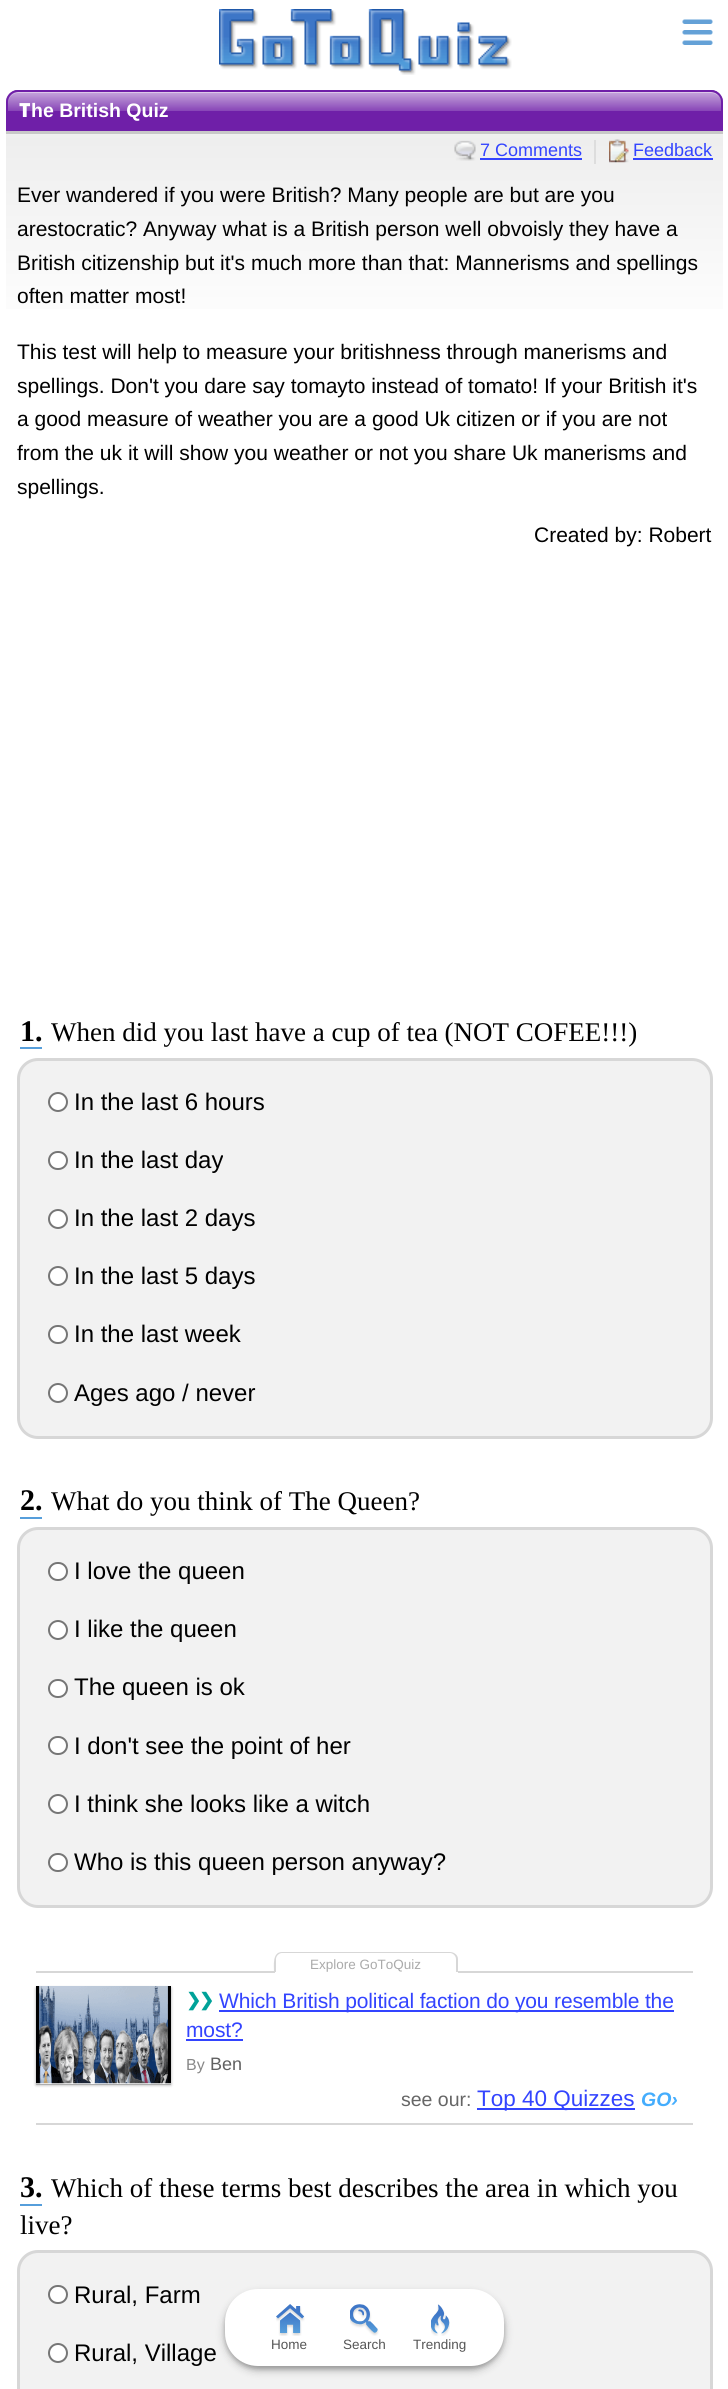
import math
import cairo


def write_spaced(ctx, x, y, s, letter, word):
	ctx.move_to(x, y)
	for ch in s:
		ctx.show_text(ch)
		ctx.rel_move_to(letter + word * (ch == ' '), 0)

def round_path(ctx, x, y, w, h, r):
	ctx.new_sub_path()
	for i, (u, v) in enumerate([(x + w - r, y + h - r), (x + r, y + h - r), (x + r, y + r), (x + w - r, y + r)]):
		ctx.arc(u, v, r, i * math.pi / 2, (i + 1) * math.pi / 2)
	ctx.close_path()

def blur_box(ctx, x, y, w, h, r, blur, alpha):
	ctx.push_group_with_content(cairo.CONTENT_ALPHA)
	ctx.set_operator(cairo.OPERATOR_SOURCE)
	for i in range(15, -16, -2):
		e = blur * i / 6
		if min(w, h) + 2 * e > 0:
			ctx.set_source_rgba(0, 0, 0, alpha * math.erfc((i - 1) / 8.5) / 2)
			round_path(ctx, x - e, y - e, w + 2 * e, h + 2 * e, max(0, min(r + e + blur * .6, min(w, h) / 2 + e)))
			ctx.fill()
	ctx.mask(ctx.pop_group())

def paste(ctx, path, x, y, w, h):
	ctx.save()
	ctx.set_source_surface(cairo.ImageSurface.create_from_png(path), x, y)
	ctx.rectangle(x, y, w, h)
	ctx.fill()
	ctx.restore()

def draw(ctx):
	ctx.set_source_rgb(1, 1, 1)
	ctx.paint()
	paste(ctx, 'media/1.png', 219, 9, 293, 66)
	paste(ctx, 'media/2.png', 682, 19, 31, 26)
	gradient = cairo.LinearGradient(364, 90, 365, 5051)
	gradient.add_color_stop_rgba(0, 1, 1, 1, 1)
	gradient.add_color_stop_rgba(0.01, 0.933, 0.933, 0.933, 1)
	gradient.add_color_stop_rgba(0.05, 1, 1, 1, 1)
	ctx.set_source(gradient)
	ctx.rectangle(6, 97, 717, 212)
	ctx.fill()
	ctx.set_source_rgb(0.784, 0.784, 0.784)
	ctx.rectangle(6, 131, 717, 3)
	ctx.fill()
	ctx.set_source_rgb(0.435, 0.122, 0.659)
	ctx.new_path()
	ctx.move_to(18, 90)
	ctx.line_to(711, 90)
	ctx.curve_to(717.5, 90, 723, 95.5, 723, 102)
	ctx.line_to(723, 131)
	ctx.line_to(6, 131)
	ctx.line_to(6, 102)
	ctx.curve_to(6, 95.5, 11.5, 90, 18, 90)
	ctx.close_path()
	ctx.fill()
	ctx.save()
	ctx.new_path()
	ctx.move_to(18, 90)
	ctx.line_to(711, 90)
	ctx.curve_to(717.5, 90, 723, 95.5, 723, 102)
	ctx.line_to(723, 131)
	ctx.line_to(6, 131)
	ctx.line_to(6, 102)
	ctx.curve_to(6, 95.5, 11.5, 90, 18, 90)
	ctx.close_path()
	ctx.clip()
	gradient = cairo.LinearGradient(365, 129, 365, 92)
	gradient.add_color_stop_rgba(0.5, 1, 1, 1, 0)
	gradient.add_color_stop_rgba(0.5, 1, 1, 1, 0.18)
	gradient.add_color_stop_rgba(1, 1, 1, 1, 0.6)
	ctx.set_source(gradient)
	ctx.rectangle(6, 92, 717, 19)
	ctx.fill()
	ctx.restore()
	ctx.set_source_rgba(1, 1, 1, 0.4)
	ctx.new_path()
	ctx.move_to(18, 93)
	ctx.line_to(711, 93)
	ctx.curve_to(717, 93, 722, 98, 722, 104)
	ctx.line_to(722, 103)
	ctx.curve_to(722, 97, 717, 92, 711, 92)
	ctx.line_to(19, 92)
	ctx.curve_to(13, 92, 8, 97, 8, 103)
	ctx.line_to(8, 104)
	ctx.curve_to(8, 98, 12, 93, 18, 93)
	ctx.close_path()
	ctx.fill()
	ctx.new_path()
	ctx.move_to(18, 91)
	ctx.line_to(711, 91)
	ctx.curve_to(717, 91, 722, 96, 722, 102)
	ctx.line_to(722, 130)
	ctx.line_to(7, 130)
	ctx.line_to(7, 102)
	ctx.curve_to(7, 96, 12, 91, 18, 91)
	ctx.close_path()
	ctx.set_source_rgb(0.435, 0.122, 0.659)
	ctx.stroke()
	ctx.select_font_face('Noto Sans Black')
	ctx.set_font_size(19.5)
	ctx.set_source_rgb(1, 1, 1)
	ctx.move_to(19, 117)
	ctx.show_text('T')
	ctx.select_font_face('Liberation Sans', cairo.FONT_SLANT_NORMAL, cairo.FONT_WEIGHT_BOLD)
	ctx.move_to(31, 117)
	ctx.show_text('he British Quiz')
	ctx.set_source_rgb(0.867, 0.867, 0.867)
	ctx.rectangle(594, 140, 2, 24)
	ctx.fill()
	paste(ctx, 'media/3.png', 454, 140, 22, 21)
	ctx.select_font_face('Liberation Sans')
	ctx.set_font_size(18)
	ctx.set_source_rgb(0.2, 0.267, 1)
	ctx.move_to(480, 156)
	ctx.show_text('7 Comments')
	ctx.rectangle(480, 158, 102, 2)
	ctx.fill()
	paste(ctx, 'media/4.png', 609, 139, 20, 24)
	ctx.move_to(633, 156)
	ctx.show_text('Feedback')
	ctx.rectangle(633, 158, 80, 2)
	ctx.fill()
	ctx.set_font_size(21)
	ctx.set_source_rgb(0, 0, 0)
	for x, y, s in [
		(17, 202, 'Ever wandered if you were British? Many people are but are you'),
		(17, 236, 'arestocratic? Anyway what is a British person well obvoisly they have a'),
		(17, 270, 'British citizenship but it\'s much more than that: Mannerisms and spellings'),
		(17, 303, 'often matter most!'),
		(17, 359, 'This test will help to measure your britishness through manerisms and'),
		(17, 393, 'spellings. Don\'t you dare say tomayto instead of tomato! If your British it\'s'),
		(17, 426, 'a good measure of weather you are a good Uk citizen or if you are not'),
		(17, 460, 'from the uk it will show you weather or not you share Uk manerisms and'),
		(17, 494, 'spellings.'),
		(534, 542, 'Created by: Robert'),
	]:
		ctx.move_to(x, y)
		ctx.show_text(s)
	ctx.set_source_rgb(0.337, 0.62, 0.859)
	ctx.rectangle(20, 1047, 22, 2)
	ctx.fill()
	ctx.select_font_face('Liberation Serif', cairo.FONT_SLANT_NORMAL, cairo.FONT_WEIGHT_BOLD)
	ctx.set_font_size(30)
	ctx.set_source_rgb(0, 0, 0)
	ctx.move_to(20, 1041)
	ctx.show_text('1.')
	ctx.select_font_face('Liberation Serif')
	ctx.set_font_size(27)
	ctx.move_to(51, 1041)
	ctx.show_text('When did you last have a cup of tea (NOT COFEE!!!)')
	ctx.set_source_rgb(0.949, 0.949, 0.949)
	round_path(ctx, 18.5, 1059.5, 693, 378, 19.5)
	ctx.fill_preserve()
	ctx.set_source_rgb(0.843, 0.843, 0.843)
	ctx.set_line_width(3)
	ctx.stroke()
	ctx.set_source_rgb(1, 1, 1)
	ctx.arc(58, 1102, 9, 0, 2 * math.pi)
	ctx.fill_preserve()
	ctx.set_source_rgb(0.463, 0.463, 0.463)
	ctx.set_line_width(2)
	ctx.stroke()
	ctx.select_font_face('Liberation Sans')
	ctx.set_font_size(24)
	ctx.set_source_rgb(0, 0, 0)
	ctx.move_to(74, 1110)
	ctx.show_text('In the last 6 hours')
	ctx.set_source_rgb(1, 1, 1)
	round_path(ctx, 49, 1152, 18, 17, 8.5)
	ctx.fill_preserve()
	ctx.set_source_rgb(0.463, 0.463, 0.463)
	ctx.stroke()
	ctx.set_source_rgb(0, 0, 0)
	ctx.move_to(74, 1168)
	ctx.show_text('In the last day')
	ctx.set_source_rgb(1, 1, 1)
	ctx.new_path()
	ctx.arc(58, 1219, 9, 0, 2 * math.pi)
	ctx.fill_preserve()
	ctx.set_source_rgb(0.463, 0.463, 0.463)
	ctx.stroke()
	ctx.set_source_rgb(0, 0, 0)
	ctx.move_to(74, 1226)
	ctx.show_text('In the last 2 days')
	ctx.set_source_rgb(1, 1, 1)
	ctx.new_path()
	ctx.arc(58, 1276, 9, 0, 2 * math.pi)
	ctx.fill_preserve()
	ctx.set_source_rgb(0.463, 0.463, 0.463)
	ctx.stroke()
	ctx.set_source_rgb(0, 0, 0)
	ctx.move_to(74, 1284)
	ctx.show_text('In the last 5 days')
	ctx.set_source_rgb(1, 1, 1)
	round_path(ctx, 49, 1326, 18, 17, 8.5)
	ctx.fill_preserve()
	ctx.set_source_rgb(0.463, 0.463, 0.463)
	ctx.stroke()
	ctx.set_source_rgb(0, 0, 0)
	ctx.move_to(74, 1342)
	ctx.show_text('In the last week')
	ctx.set_source_rgb(1, 1, 1)
	ctx.new_path()
	ctx.arc(58, 1393, 9, 0, 2 * math.pi)
	ctx.fill_preserve()
	ctx.set_source_rgb(0.463, 0.463, 0.463)
	ctx.stroke()
	ctx.set_source_rgb(0, 0, 0)
	ctx.move_to(74, 1401)
	ctx.show_text('Ages ago / never')
	ctx.set_source_rgb(0.337, 0.62, 0.859)
	ctx.rectangle(20, 1517, 22, 2)
	ctx.fill()
	ctx.select_font_face('Liberation Serif', cairo.FONT_SLANT_NORMAL, cairo.FONT_WEIGHT_BOLD)
	ctx.set_font_size(30)
	ctx.set_source_rgb(0, 0, 0)
	ctx.move_to(20, 1510)
	ctx.show_text('2.')
	ctx.select_font_face('Liberation Serif')
	ctx.set_font_size(27)
	ctx.move_to(51, 1510)
	ctx.show_text('What do you think of The Queen?')
	ctx.set_source_rgb(0.949, 0.949, 0.949)
	round_path(ctx, 18.5, 1528.5, 693, 378, 19.5)
	ctx.fill_preserve()
	ctx.set_source_rgb(0.843, 0.843, 0.843)
	ctx.set_line_width(3)
	ctx.stroke()
	ctx.set_source_rgb(1, 1, 1)
	round_path(ctx, 49, 1563, 18, 17, 8.5)
	ctx.fill_preserve()
	ctx.set_source_rgb(0.463, 0.463, 0.463)
	ctx.set_line_width(2)
	ctx.stroke()
	ctx.select_font_face('Liberation Sans')
	ctx.set_font_size(24)
	ctx.set_source_rgb(0, 0, 0)
	ctx.move_to(74, 1579)
	ctx.show_text('I love the queen')
	ctx.set_source_rgb(1, 1, 1)
	ctx.new_path()
	ctx.arc(58, 1630, 9, 0, 2 * math.pi)
	ctx.fill_preserve()
	ctx.set_source_rgb(0.463, 0.463, 0.463)
	ctx.stroke()
	ctx.set_source_rgb(0, 0, 0)
	ctx.move_to(74, 1637)
	ctx.show_text('I like the queen')
	ctx.set_source_rgb(1, 1, 1)
	round_path(ctx, 49, 1680, 18, 17, 8.5)
	ctx.fill_preserve()
	ctx.set_source_rgb(0.463, 0.463, 0.463)
	ctx.stroke()
	ctx.set_source_rgb(0, 0, 0)
	ctx.move_to(74, 1695)
	ctx.show_text('The queen is ok')
	ctx.set_source_rgb(1, 1, 1)
	round_path(ctx, 49, 1737, 18, 17, 8.5)
	ctx.fill_preserve()
	ctx.set_source_rgb(0.463, 0.463, 0.463)
	ctx.stroke()
	ctx.set_source_rgb(0, 0, 0)
	ctx.move_to(74, 1754)
	ctx.show_text('I don\'t see the point of her')
	ctx.set_source_rgb(1, 1, 1)
	ctx.new_path()
	ctx.arc(58, 1804, 9, 0, 2 * math.pi)
	ctx.fill_preserve()
	ctx.set_source_rgb(0.463, 0.463, 0.463)
	ctx.stroke()
	ctx.set_source_rgb(0, 0, 0)
	ctx.move_to(74, 1812)
	ctx.show_text('I think she looks like a witch')
	ctx.set_source_rgb(1, 1, 1)
	round_path(ctx, 49, 1854, 18, 17, 8.5)
	ctx.fill_preserve()
	ctx.set_source_rgb(0.463, 0.463, 0.463)
	ctx.stroke()
	ctx.set_source_rgb(0, 0, 0)
	ctx.move_to(74, 1870)
	ctx.show_text('Who is this queen person anyway?')
	ctx.set_source_rgb(0.843, 0.843, 0.843)
	ctx.rectangle(36, 1971, 657, 2)
	ctx.fill()
	ctx.rectangle(36, 2123, 657, 2)
	ctx.fill()
	ctx.set_source_rgb(1, 1, 1)
	ctx.new_path()
	ctx.move_to(283, 1952)
	ctx.line_to(450, 1952)
	ctx.curve_to(454.5, 1952, 458, 1955.5, 458, 1960)
	ctx.line_to(458, 1973)
	ctx.line_to(275, 1973)
	ctx.line_to(275, 1960)
	ctx.curve_to(275, 1955.5, 278.5, 1952, 283, 1952)
	ctx.close_path()
	ctx.fill()
	ctx.set_source_rgb(0.843, 0.843, 0.843)
	ctx.set_fill_rule(cairo.FILL_RULE_EVEN_ODD)
	ctx.new_path()
	ctx.move_to(282, 1952)
	ctx.line_to(450, 1952)
	ctx.curve_to(454, 1952, 458, 1955, 458, 1959)
	ctx.line_to(458, 1972)
	ctx.line_to(274, 1972)
	ctx.curve_to(274, 1966, 272, 1952, 282, 1952)
	ctx.close_path()
	ctx.move_to(282, 1953)
	ctx.line_to(450, 1953)
	ctx.curve_to(453, 1953, 456, 1956, 456, 1959)
	ctx.line_to(456, 1972)
	ctx.line_to(276, 1972)
	ctx.line_to(276, 1959)
	ctx.curve_to(276, 1956, 279, 1953, 282, 1953)
	ctx.close_path()
	ctx.fill()
	ctx.set_font_size(13.5)
	ctx.set_source_rgb(0.667, 0.667, 0.667)
	ctx.move_to(310, 1969)
	ctx.show_text('Explore GoToQuiz')
	ctx.set_source_rgb(0.859, 0.859, 0.859)
	ctx.rectangle(36, 2084, 135, 1)
	ctx.fill()
	ctx.set_source_rgb(0, 0, 0)
	blur_box(ctx, 36, 1988, 135, 97, 0, 1.5, 0.33)
	ctx.set_source_rgb(1, 1, 1)
	ctx.rectangle(36, 2083, 135, 1)
	ctx.fill()
	paste(ctx, 'media/5.png', 36, 1986, 135, 98)
	ctx.select_font_face('DejaVu Sans', cairo.FONT_SLANT_NORMAL, cairo.FONT_WEIGHT_BOLD)
	ctx.set_font_size(18)
	ctx.set_source_rgb(0, 0.635, 0.6)
	write_spaced(ctx, 186, 2006, '❯❯', -2, 0)
	ctx.set_source_rgb(0.2, 0.267, 1)
	ctx.rectangle(219, 2010, 455, 2)
	ctx.fill()
	ctx.select_font_face('Liberation Sans')
	ctx.set_font_size(21)
	write_spaced(ctx, 219, 2008, 'Which British political faction do you resemble the', -0.15, 0)
	write_spaced(ctx, 186, 2037, 'most?', -0.15, 0)
	ctx.rectangle(186, 2039, 57, 2)
	ctx.fill()
	ctx.set_font_size(16)
	ctx.set_source_rgb(0.533, 0.533, 0.533)
	ctx.move_to(186, 2070)
	ctx.show_text('By')
	ctx.set_font_size(18)
	ctx.set_source_rgb(0.376, 0.376, 0.376)
	ctx.move_to(210, 2070)
	ctx.show_text('Ben')
	ctx.set_font_size(19.5)
	ctx.set_source_rgb(0.4, 0.4, 0.4)
	ctx.move_to(401, 2106)
	ctx.show_text('see our:')
	ctx.set_source_rgb(0.2, 0.267, 1)
	ctx.rectangle(477, 2108, 158, 2)
	ctx.fill()
	ctx.set_font_size(22.5)
	ctx.move_to(477, 2106)
	ctx.show_text('Top 40 Quizzes')
	ctx.select_font_face('Liberation Sans', cairo.FONT_SLANT_ITALIC, cairo.FONT_WEIGHT_BOLD)
	ctx.set_font_size(19.5)
	ctx.set_source_rgb(0.267, 0.678, 0.992)
	ctx.move_to(641, 2106)
	ctx.show_text('GO›')
	ctx.set_source_rgb(0.337, 0.62, 0.859)
	ctx.rectangle(20, 2204, 22, 2)
	ctx.fill()
	ctx.select_font_face('Liberation Serif', cairo.FONT_SLANT_NORMAL, cairo.FONT_WEIGHT_BOLD)
	ctx.set_font_size(30)
	ctx.set_source_rgb(0, 0, 0)
	ctx.move_to(20, 2197)
	ctx.show_text('3.')
	ctx.select_font_face('Liberation Serif')
	ctx.set_font_size(27)
	ctx.move_to(51, 2197)
	ctx.show_text('Which of these terms best describes the area in which you')
	ctx.move_to(20, 2234)
	ctx.show_text('live?')
	ctx.set_source_rgb(0.949, 0.949, 0.949)
	round_path(ctx, 18.5, 2251.5, 693, 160, 19.5)
	ctx.fill_preserve()
	ctx.set_source_rgb(0.843, 0.843, 0.843)
	ctx.set_line_width(3)
	ctx.stroke()
	ctx.set_source_rgb(1, 1, 1)
	round_path(ctx, 49, 2286, 18, 17, 8.5)
	ctx.fill_preserve()
	ctx.set_source_rgb(0.463, 0.463, 0.463)
	ctx.set_line_width(2)
	ctx.stroke()
	ctx.select_font_face('Liberation Sans')
	ctx.set_font_size(24)
	ctx.set_source_rgb(0, 0, 0)
	ctx.move_to(74, 2303)
	ctx.show_text('Rural, Farm')
	ctx.set_source_rgb(1, 1, 1)
	ctx.new_path()
	ctx.arc(58, 2353, 9, 0, 2 * math.pi)
	ctx.fill_preserve()
	ctx.set_source_rgb(0.463, 0.463, 0.463)
	ctx.stroke()
	ctx.set_source_rgb(0, 0, 0)
	ctx.move_to(74, 2361)
	ctx.show_text('Rural, Village')
	ctx.set_source_rgb(0, 0, 0)
	blur_box(ctx, 225, 2292, 279, 77, 33, 2, 0.16)
	blur_box(ctx, 225, 2294, 279, 76, 33, 4.5, 0.28)
	ctx.set_source_rgb(1, 1, 1)
	round_path(ctx, 225, 2289, 279, 77, 33)
	ctx.fill()
	paste(ctx, 'media/6.png', 276, 2304, 29, 32)
	ctx.set_font_size(13.5)
	ctx.set_source_rgb(0.333, 0.333, 0.333)
	ctx.move_to(271, 2349)
	ctx.show_text('Home')
	paste(ctx, 'media/7.png', 350, 2304, 29, 32)
	ctx.move_to(343, 2349)
	ctx.show_text('Search')
	paste(ctx, 'media/8.png', 431, 2304, 19, 32)
	ctx.move_to(413, 2349)
	ctx.show_text('Trending')


surface = cairo.ImageSurface(cairo.FORMAT_RGB24, 728, 2389)
ctx = cairo.Context(surface)
options = cairo.FontOptions()
options.set_hint_metrics(cairo.HINT_METRICS_OFF)
options.set_hint_style(cairo.HINT_STYLE_NONE)
ctx.set_font_options(options)
ctx.set_miter_limit(4)
draw(ctx)
surface.write_to_png('image.png')
